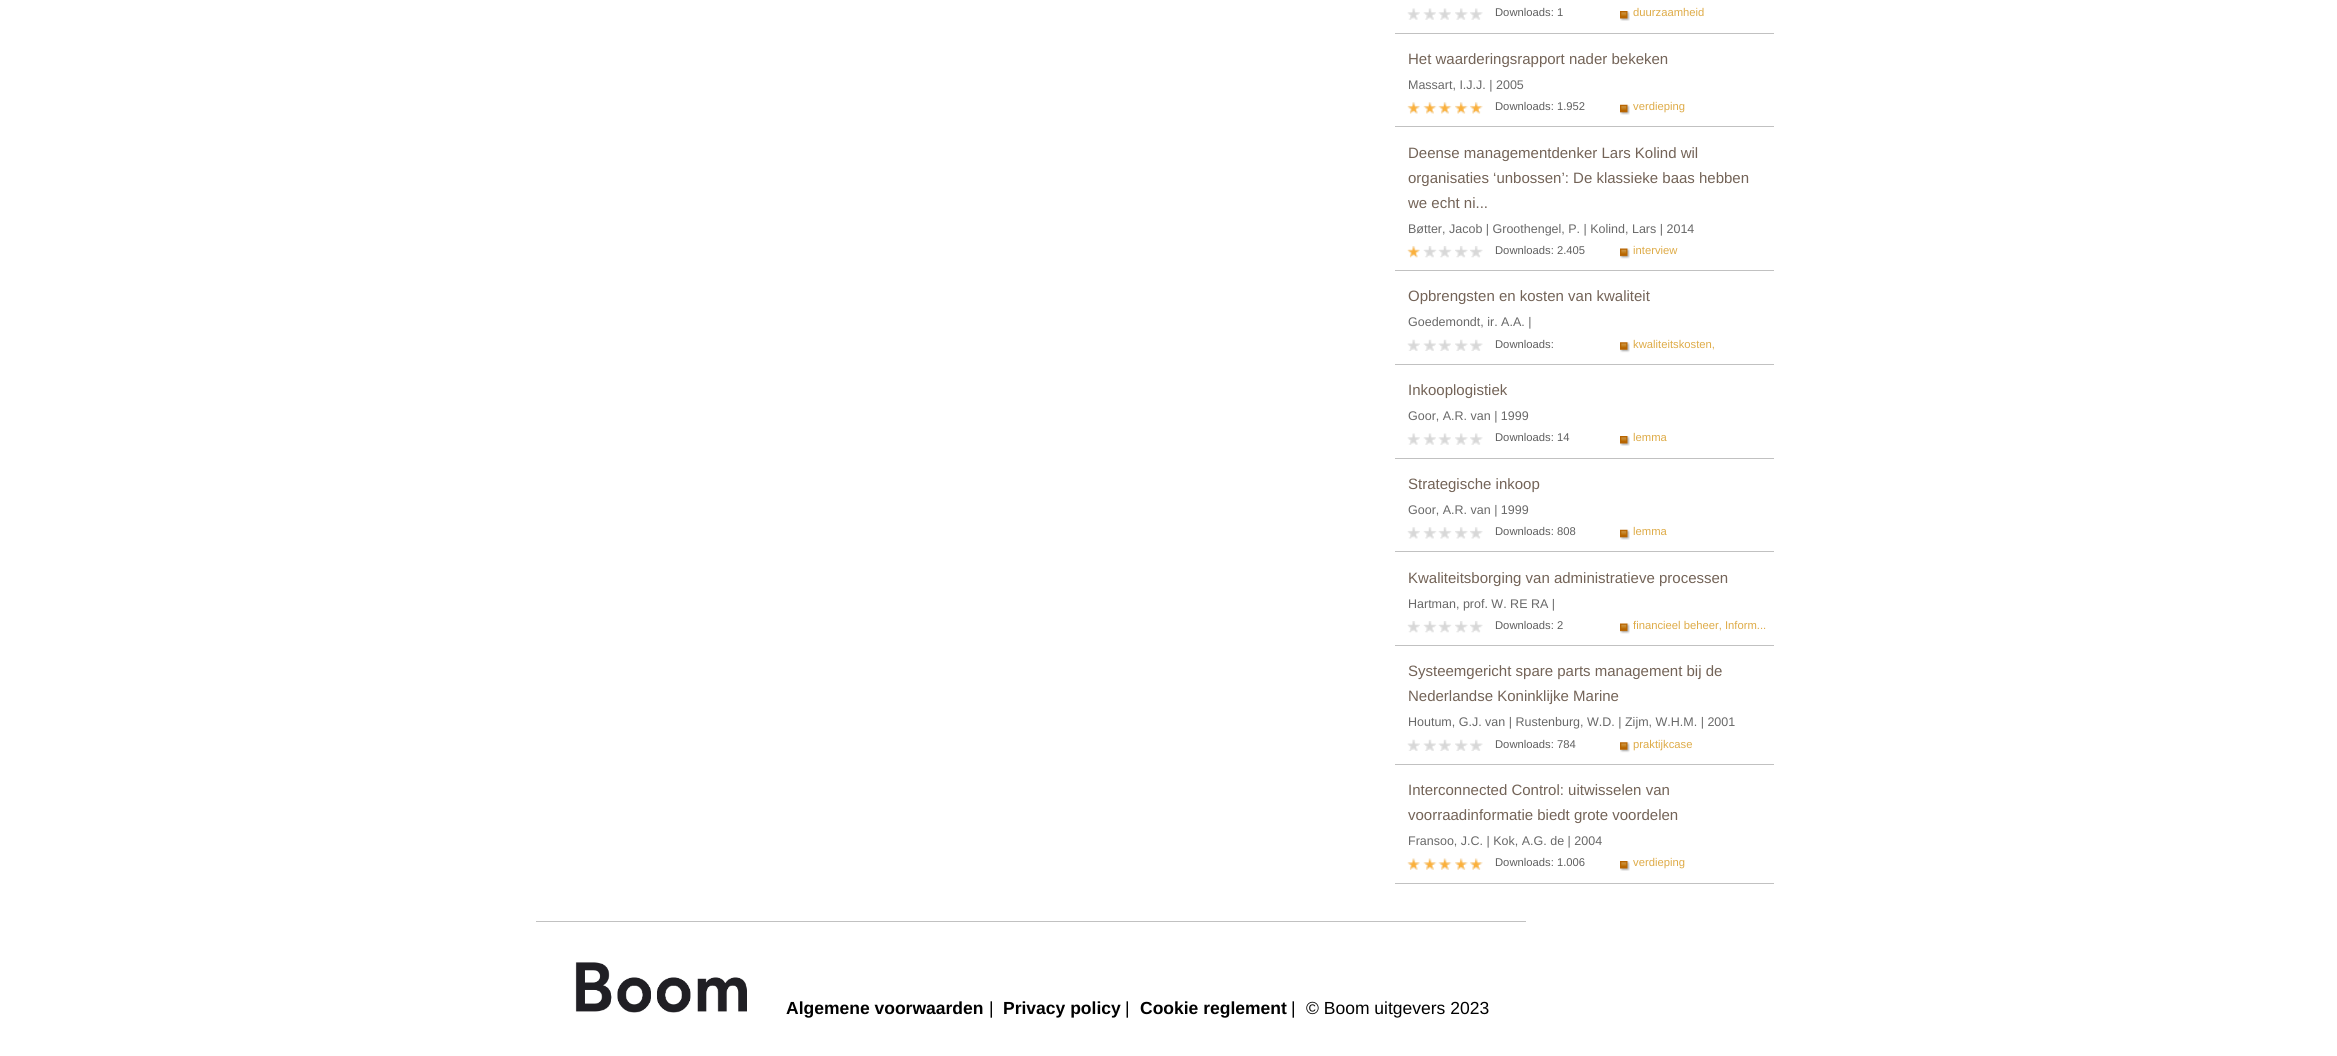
import math
import cairo


def paste(ctx, path, x, y, w, h):
	ctx.save()
	ctx.set_source_surface(cairo.ImageSurface.create_from_png(path), x, y)
	ctx.rectangle(x, y, w, h)
	ctx.fill()
	ctx.restore()

def draw(ctx):
	ctx.set_source_rgb(1, 1, 1)
	ctx.paint()
	ctx.set_source_rgb(0.757, 0.757, 0.757)
	ctx.rectangle(1395, 33, 379, 1)
	ctx.fill()
	paste(ctx, 'media/1.png', 1407, 8, 13, 12)
	paste(ctx, 'media/2.png', 1423, 8, 13, 12)
	paste(ctx, 'media/3.png', 1438, 8, 13, 12)
	paste(ctx, 'media/4.png', 1455, 8, 13, 12)
	paste(ctx, 'media/4.png', 1470, 8, 13, 12)
	ctx.select_font_face('Liberation Sans')
	ctx.set_font_size(11.25)
	ctx.set_source_rgb(0.373, 0.373, 0.373)
	ctx.move_to(1495, 16)
	ctx.show_text('Downloads: 1')
	paste(ctx, 'media/5.png', 1620, 11, 10, 10)
	ctx.set_source_rgb(0.871, 0.671, 0.278)
	ctx.move_to(1633, 16)
	ctx.show_text('duurzaamheid')
	ctx.set_source_rgb(0.757, 0.757, 0.757)
	ctx.rectangle(1395, 126, 379, 1)
	ctx.fill()
	ctx.set_font_size(15)
	ctx.set_source_rgb(0.451, 0.388, 0.341)
	ctx.move_to(1408, 64)
	ctx.show_text('Het waarderingsrapport nader bekeken')
	ctx.set_font_size(12.5)
	ctx.set_source_rgb(0.408, 0.408, 0.408)
	ctx.move_to(1408, 89)
	ctx.show_text('Massart, I.J.J. | 2005')
	paste(ctx, 'media/6.png', 1407, 102, 13, 12)
	paste(ctx, 'media/7.png', 1423, 102, 14, 12)
	paste(ctx, 'media/8.png', 1438, 102, 14, 12)
	paste(ctx, 'media/9.png', 1455, 102, 13, 12)
	paste(ctx, 'media/9.png', 1470, 102, 13, 12)
	ctx.set_font_size(11.25)
	ctx.set_source_rgb(0.373, 0.373, 0.373)
	ctx.move_to(1495, 110)
	ctx.show_text('Downloads: 1.952')
	paste(ctx, 'media/10.png', 1620, 104, 10, 11)
	ctx.set_source_rgb(0.871, 0.671, 0.278)
	ctx.move_to(1633, 110)
	ctx.show_text('verdieping')
	ctx.set_source_rgb(0.757, 0.757, 0.757)
	ctx.rectangle(1395, 270, 379, 1)
	ctx.fill()
	ctx.set_font_size(15)
	ctx.set_source_rgb(0.451, 0.388, 0.341)
	for x, y, s in [
		(1408, 158, 'Deense managementdenker Lars Kolind wil'),
		(1408, 183, 'organisaties ‘unbossen’: De klassieke baas hebben'),
		(1408, 208, 'we echt ni...'),
	]:
		ctx.move_to(x, y)
		ctx.show_text(s)
	ctx.set_font_size(12.5)
	ctx.set_source_rgb(0.408, 0.408, 0.408)
	ctx.move_to(1408, 233)
	ctx.show_text('Bøtter, Jacob | Groothengel, P. | Kolind, Lars | 2014')
	paste(ctx, 'media/11.png', 1407, 246, 13, 12)
	paste(ctx, 'media/12.png', 1423, 246, 14, 12)
	paste(ctx, 'media/13.png', 1438, 246, 14, 12)
	paste(ctx, 'media/14.png', 1455, 246, 13, 12)
	paste(ctx, 'media/14.png', 1470, 246, 13, 12)
	ctx.set_font_size(11.25)
	ctx.set_source_rgb(0.373, 0.373, 0.373)
	ctx.move_to(1495, 254)
	ctx.show_text('Downloads: 2.405')
	paste(ctx, 'media/15.png', 1620, 248, 10, 11)
	ctx.set_source_rgb(0.871, 0.671, 0.278)
	ctx.move_to(1633, 254)
	ctx.show_text('interview')
	ctx.set_source_rgb(0.757, 0.757, 0.757)
	ctx.rectangle(1395, 364, 379, 1)
	ctx.fill()
	ctx.set_font_size(15)
	ctx.set_source_rgb(0.451, 0.388, 0.341)
	ctx.move_to(1408, 301)
	ctx.show_text('Opbrengsten en kosten van kwaliteit')
	ctx.set_font_size(12.5)
	ctx.set_source_rgb(0.408, 0.408, 0.408)
	ctx.move_to(1408, 326)
	ctx.show_text('Goedemondt, ir. A.A. |')
	paste(ctx, 'media/16.png', 1407, 339, 13, 12)
	paste(ctx, 'media/17.png', 1423, 339, 13, 12)
	paste(ctx, 'media/18.png', 1438, 339, 13, 12)
	paste(ctx, 'media/19.png', 1455, 339, 13, 12)
	paste(ctx, 'media/19.png', 1470, 339, 13, 12)
	ctx.set_font_size(11.25)
	ctx.set_source_rgb(0.373, 0.373, 0.373)
	ctx.move_to(1495, 348)
	ctx.show_text('Downloads:')
	paste(ctx, 'media/20.png', 1620, 342, 10, 11)
	ctx.set_source_rgb(0.871, 0.671, 0.278)
	ctx.move_to(1633, 348)
	ctx.show_text('kwaliteitskosten,')
	ctx.set_source_rgb(0.757, 0.757, 0.757)
	ctx.rectangle(1395, 458, 379, 1)
	ctx.fill()
	ctx.set_font_size(15)
	ctx.set_source_rgb(0.451, 0.388, 0.341)
	ctx.move_to(1408, 395)
	ctx.show_text('Inkooplogistiek')
	ctx.set_font_size(12.5)
	ctx.set_source_rgb(0.408, 0.408, 0.408)
	ctx.move_to(1408, 420)
	ctx.show_text('Goor, A.R. van | 1999')
	paste(ctx, 'media/1.png', 1407, 433, 13, 12)
	paste(ctx, 'media/2.png', 1423, 433, 13, 12)
	paste(ctx, 'media/3.png', 1438, 433, 13, 12)
	paste(ctx, 'media/4.png', 1455, 433, 13, 12)
	paste(ctx, 'media/4.png', 1470, 433, 13, 12)
	ctx.set_font_size(11.25)
	ctx.set_source_rgb(0.373, 0.373, 0.373)
	ctx.move_to(1495, 441)
	ctx.show_text('Downloads: 14')
	paste(ctx, 'media/5.png', 1620, 436, 10, 10)
	ctx.set_source_rgb(0.871, 0.671, 0.278)
	ctx.move_to(1633, 441)
	ctx.show_text('lemma')
	ctx.set_source_rgb(0.757, 0.757, 0.757)
	ctx.rectangle(1395, 551, 379, 1)
	ctx.fill()
	ctx.set_font_size(15)
	ctx.set_source_rgb(0.451, 0.388, 0.341)
	ctx.move_to(1408, 489)
	ctx.show_text('Strategische inkoop')
	ctx.set_font_size(12.5)
	ctx.set_source_rgb(0.408, 0.408, 0.408)
	ctx.move_to(1408, 514)
	ctx.show_text('Goor, A.R. van | 1999')
	paste(ctx, 'media/21.png', 1407, 527, 13, 12)
	paste(ctx, 'media/22.png', 1423, 527, 14, 12)
	paste(ctx, 'media/23.png', 1438, 527, 14, 12)
	paste(ctx, 'media/24.png', 1455, 527, 13, 12)
	paste(ctx, 'media/24.png', 1470, 527, 13, 12)
	ctx.set_font_size(11.25)
	ctx.set_source_rgb(0.373, 0.373, 0.373)
	ctx.move_to(1495, 535)
	ctx.show_text('Downloads: 808')
	paste(ctx, 'media/10.png', 1620, 529, 10, 11)
	ctx.set_source_rgb(0.871, 0.671, 0.278)
	ctx.move_to(1633, 535)
	ctx.show_text('lemma')
	ctx.set_source_rgb(0.757, 0.757, 0.757)
	ctx.rectangle(1395, 645, 379, 1)
	ctx.fill()
	ctx.set_font_size(15)
	ctx.set_source_rgb(0.451, 0.388, 0.341)
	ctx.move_to(1408, 583)
	ctx.show_text('Kwaliteitsborging van administratieve processen')
	ctx.set_font_size(12.5)
	ctx.set_source_rgb(0.408, 0.408, 0.408)
	ctx.move_to(1408, 608)
	ctx.show_text('Hartman, prof. W. RE RA |')
	paste(ctx, 'media/25.png', 1407, 621, 13, 12)
	paste(ctx, 'media/12.png', 1423, 621, 14, 12)
	paste(ctx, 'media/13.png', 1438, 621, 14, 12)
	paste(ctx, 'media/14.png', 1455, 621, 13, 12)
	paste(ctx, 'media/14.png', 1470, 621, 13, 12)
	ctx.set_font_size(11.25)
	ctx.set_source_rgb(0.373, 0.373, 0.373)
	ctx.move_to(1495, 629)
	ctx.show_text('Downloads: 2')
	paste(ctx, 'media/26.png', 1620, 623, 10, 11)
	ctx.set_source_rgb(0.871, 0.671, 0.278)
	ctx.move_to(1633, 629)
	ctx.show_text('financieel beheer, Inform...')
	ctx.set_source_rgb(0.757, 0.757, 0.757)
	ctx.rectangle(1395, 764, 379, 1)
	ctx.fill()
	ctx.set_font_size(15)
	ctx.set_source_rgb(0.451, 0.388, 0.341)
	ctx.move_to(1408, 676)
	ctx.show_text('Systeemgericht spare parts management bij de')
	ctx.move_to(1408, 701)
	ctx.show_text('Nederlandse Koninklijke Marine')
	ctx.set_font_size(12.5)
	ctx.set_source_rgb(0.408, 0.408, 0.408)
	ctx.move_to(1408, 726)
	ctx.show_text('Houtum, G.J. van | Rustenburg, W.D. | Zijm, W.H.M. | 2001')
	paste(ctx, 'media/16.png', 1407, 739, 13, 12)
	paste(ctx, 'media/17.png', 1423, 739, 13, 12)
	paste(ctx, 'media/18.png', 1438, 739, 13, 12)
	paste(ctx, 'media/19.png', 1455, 739, 13, 12)
	paste(ctx, 'media/19.png', 1470, 739, 13, 12)
	ctx.set_font_size(11.25)
	ctx.set_source_rgb(0.373, 0.373, 0.373)
	ctx.move_to(1495, 748)
	ctx.show_text('Downloads: 784')
	paste(ctx, 'media/20.png', 1620, 742, 10, 11)
	ctx.set_source_rgb(0.871, 0.671, 0.278)
	ctx.move_to(1633, 748)
	ctx.show_text('praktijkcase')
	ctx.set_source_rgb(0.757, 0.757, 0.757)
	ctx.rectangle(1395, 883, 379, 1)
	ctx.fill()
	ctx.set_font_size(15)
	ctx.set_source_rgb(0.451, 0.388, 0.341)
	ctx.move_to(1408, 795)
	ctx.show_text('Interconnected Control: uitwisselen van')
	ctx.move_to(1408, 820)
	ctx.show_text('voorraadinformatie biedt grote voordelen')
	ctx.set_font_size(12.5)
	ctx.set_source_rgb(0.408, 0.408, 0.408)
	ctx.move_to(1408, 845)
	ctx.show_text('Fransoo, J.C. | Kok, A.G. de | 2004')
	paste(ctx, 'media/27.png', 1407, 858, 13, 12)
	paste(ctx, 'media/28.png', 1423, 858, 14, 12)
	paste(ctx, 'media/29.png', 1438, 858, 14, 12)
	paste(ctx, 'media/30.png', 1455, 858, 13, 12)
	paste(ctx, 'media/30.png', 1470, 858, 13, 12)
	ctx.set_font_size(11.25)
	ctx.set_source_rgb(0.373, 0.373, 0.373)
	ctx.move_to(1495, 866)
	ctx.show_text('Downloads: 1.006')
	paste(ctx, 'media/5.png', 1620, 861, 10, 10)
	ctx.set_source_rgb(0.871, 0.671, 0.278)
	ctx.move_to(1633, 866)
	ctx.show_text('verdieping')
	ctx.set_source_rgb(0.757, 0.757, 0.757)
	ctx.rectangle(536, 921, 990, 1)
	ctx.fill()
	paste(ctx, 'media/31.png', 575, 962, 172, 51)
	ctx.select_font_face('Liberation Sans', cairo.FONT_SLANT_NORMAL, cairo.FONT_WEIGHT_BOLD)
	ctx.set_font_size(17.5)
	ctx.set_source_rgb(0, 0, 0)
	ctx.move_to(786, 1014)
	ctx.show_text('Algemene voorwaarden')
	ctx.select_font_face('Liberation Sans')
	ctx.move_to(989, 1014)
	ctx.show_text('|')
	ctx.select_font_face('Liberation Sans', cairo.FONT_SLANT_NORMAL, cairo.FONT_WEIGHT_BOLD)
	ctx.move_to(1003, 1014)
	ctx.show_text('Privacy policy')
	ctx.select_font_face('Liberation Sans')
	ctx.move_to(1125, 1014)
	ctx.show_text('|')
	ctx.select_font_face('Liberation Sans', cairo.FONT_SLANT_NORMAL, cairo.FONT_WEIGHT_BOLD)
	ctx.move_to(1140, 1014)
	ctx.show_text('Cookie reglement')
	ctx.select_font_face('Liberation Sans')
	ctx.move_to(1291, 1014)
	ctx.show_text('|')
	ctx.move_to(1306, 1014)
	ctx.show_text('© Boom uitgevers 2023')


surface = cairo.ImageSurface(cairo.FORMAT_RGB24, 2337, 1056)
ctx = cairo.Context(surface)
options = cairo.FontOptions()
options.set_hint_metrics(cairo.HINT_METRICS_OFF)
options.set_hint_style(cairo.HINT_STYLE_NONE)
ctx.set_font_options(options)
ctx.set_miter_limit(4)
draw(ctx)
surface.write_to_png('image.png')
